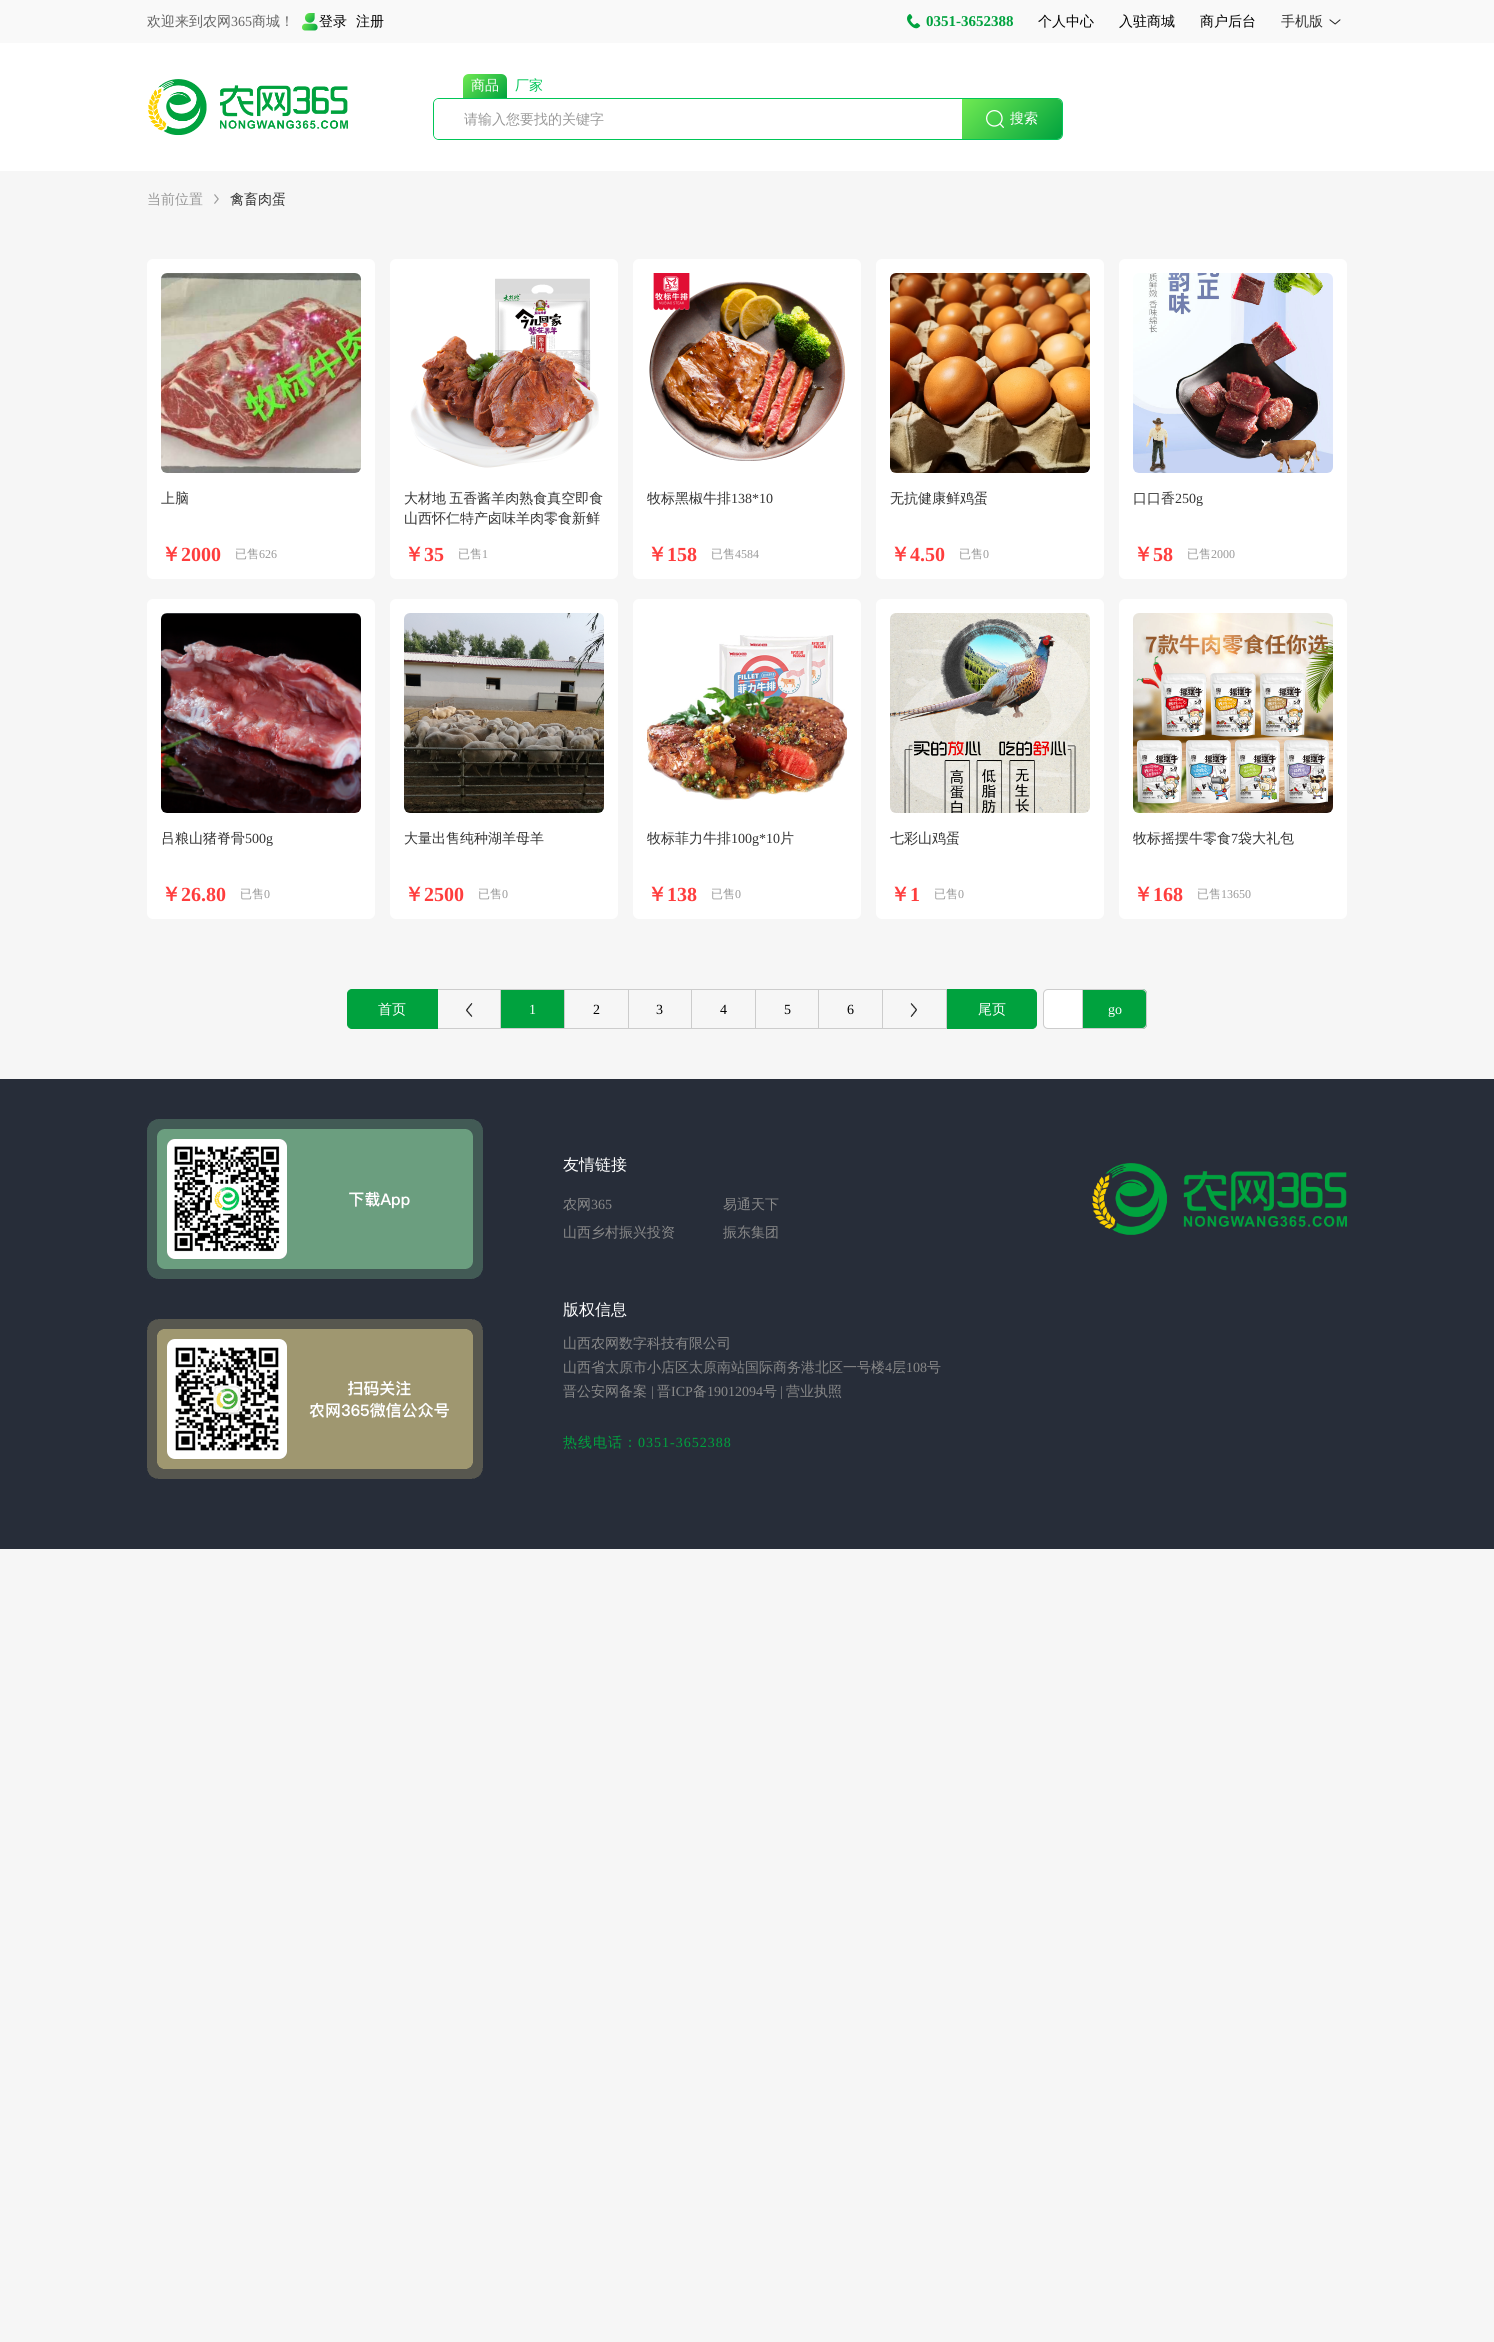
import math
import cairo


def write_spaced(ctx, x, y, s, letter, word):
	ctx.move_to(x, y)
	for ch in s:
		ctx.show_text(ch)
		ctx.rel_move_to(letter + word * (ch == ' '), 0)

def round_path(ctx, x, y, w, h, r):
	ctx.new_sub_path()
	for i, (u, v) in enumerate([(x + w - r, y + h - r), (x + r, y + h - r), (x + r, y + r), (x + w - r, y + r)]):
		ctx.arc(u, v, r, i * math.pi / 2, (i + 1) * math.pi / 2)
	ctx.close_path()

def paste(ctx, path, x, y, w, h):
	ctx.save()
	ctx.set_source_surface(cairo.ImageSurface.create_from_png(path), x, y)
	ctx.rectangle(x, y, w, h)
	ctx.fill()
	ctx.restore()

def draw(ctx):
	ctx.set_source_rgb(0.961, 0.961, 0.961)
	ctx.paint()
	ctx.set_source_rgb(0.976, 0.976, 0.976)
	ctx.rectangle(0, 0, 1494, 43)
	ctx.fill()
	ctx.select_font_face('WenQuanYi Zen Hei Medium')
	ctx.set_font_size(14)
	ctx.set_source_rgb(0.4, 0.4, 0.4)
	ctx.move_to(147, 26)
	ctx.show_text('欢迎来到农网')
	ctx.select_font_face('Liberation Serif')
	ctx.move_to(231, 26)
	ctx.show_text('365')
	ctx.select_font_face('WenQuanYi Zen Hei Medium')
	ctx.move_to(252, 26)
	ctx.show_text('商城！')
	paste(ctx, 'media/1.png', 302, 13, 16, 18)
	ctx.set_source_rgb(0, 0, 0)
	ctx.move_to(319, 26)
	ctx.show_text('登录')
	ctx.move_to(356, 26)
	ctx.show_text('注册')
	paste(ctx, 'media/2.png', 907, 14, 14, 15)
	ctx.select_font_face('Liberation Serif', cairo.FONT_SLANT_NORMAL, cairo.FONT_WEIGHT_BOLD)
	ctx.set_font_size(15)
	ctx.set_source_rgb(0, 0.635, 0.243)
	ctx.move_to(926, 26)
	ctx.show_text('0351-3652388')
	ctx.select_font_face('WenQuanYi Zen Hei Medium')
	ctx.set_font_size(14)
	ctx.set_source_rgb(0, 0, 0)
	for x, y, s in [
		(1038, 26, '个人中心'),
		(1119, 26, '入驻商城'),
		(1200, 26, '商户后台'),
	]:
		ctx.move_to(x, y)
		ctx.show_text(s)
	ctx.set_source_rgb(0.2, 0.2, 0.2)
	ctx.move_to(1281, 26)
	ctx.show_text('手机版')
	paste(ctx, 'media/3.png', 1329, 19, 12, 6)
	ctx.set_source_rgb(1, 1, 1)
	ctx.rectangle(0, 43, 1494, 128)
	ctx.fill()
	paste(ctx, 'media/4.png', 148, 79, 200, 57)
	gradient = cairo.LinearGradient(468, 69, 502, 103)
	gradient.add_color_stop_rgba(0, 0.439, 0.918, 0.322, 1)
	gradient.add_color_stop_rgba(1, 0, 0.635, 0.243, 1)
	ctx.set_source(gradient)
	ctx.new_path()
	ctx.move_to(469, 74)
	ctx.line_to(501, 74)
	ctx.curve_to(504.5, 74, 507, 76.5, 507, 80)
	ctx.line_to(507, 98)
	ctx.line_to(463, 98)
	ctx.line_to(463, 80)
	ctx.curve_to(463, 76.5, 465.5, 74, 469, 74)
	ctx.close_path()
	ctx.fill()
	ctx.set_source_rgb(1, 1, 1)
	ctx.move_to(471, 90)
	ctx.show_text('商品')
	ctx.set_source_rgb(0, 0.776, 0.341)
	ctx.move_to(515, 90)
	ctx.show_text('厂家')
	round_path(ctx, 433.5, 98.5, 629, 41, 5.5)
	ctx.set_line_width(1)
	ctx.stroke()
	ctx.set_source_rgb(1, 1, 1)
	ctx.new_path()
	ctx.move_to(439, 99)
	ctx.line_to(962, 99)
	ctx.line_to(962, 139)
	ctx.line_to(439, 139)
	ctx.curve_to(436, 139, 434, 137, 434, 134)
	ctx.line_to(434, 104)
	ctx.curve_to(434, 101, 436, 99, 439, 99)
	ctx.close_path()
	ctx.fill()
	ctx.set_source_rgb(0.6, 0.6, 0.6)
	ctx.move_to(464, 124)
	ctx.show_text('请输入您要找的关键字')
	gradient = cairo.LinearGradient(977, 84, 1047, 154)
	gradient.add_color_stop_rgba(0, 0.439, 0.918, 0.322, 1)
	gradient.add_color_stop_rgba(1, 0, 0.635, 0.243, 1)
	ctx.set_source(gradient)
	ctx.new_path()
	ctx.move_to(962, 99)
	ctx.line_to(1057, 99)
	ctx.curve_to(1060, 99, 1062, 101, 1062, 104)
	ctx.line_to(1062, 134)
	ctx.curve_to(1062, 137, 1060, 139, 1057, 139)
	ctx.line_to(962, 139)
	ctx.close_path()
	ctx.fill()
	paste(ctx, 'media/5.png', 986, 110, 18, 18)
	ctx.set_source_rgb(1, 1, 1)
	ctx.move_to(1010, 123)
	ctx.show_text('搜索')
	ctx.set_source_rgb(0.6, 0.6, 0.6)
	ctx.move_to(147, 204)
	ctx.show_text('当前位置')
	paste(ctx, 'media/6.png', 214, 194, 5, 10)
	ctx.set_source_rgb(0.2, 0.2, 0.2)
	ctx.move_to(230, 204)
	ctx.show_text('禽畜肉蛋')
	ctx.set_source_rgb(1, 1, 1)
	round_path(ctx, 147, 259, 228, 320, 6)
	ctx.fill()
	paste(ctx, 'media/7.png', 161, 273, 200, 200)
	ctx.set_source_rgb(0.2, 0.2, 0.2)
	ctx.move_to(161, 503)
	ctx.show_text('上脑')
	ctx.select_font_face('WenQuanYi Zen Hei', cairo.FONT_SLANT_NORMAL, cairo.FONT_WEIGHT_BOLD)
	ctx.set_font_size(20)
	ctx.set_source_rgb(1, 0.239, 0.239)
	ctx.move_to(161, 561)
	ctx.show_text('￥')
	ctx.select_font_face('Liberation Serif', cairo.FONT_SLANT_NORMAL, cairo.FONT_WEIGHT_BOLD)
	ctx.move_to(181, 561)
	ctx.show_text('2000')
	ctx.select_font_face('WenQuanYi Zen Hei Medium')
	ctx.set_font_size(12)
	ctx.set_source_rgb(0.6, 0.6, 0.6)
	ctx.move_to(235, 558)
	ctx.show_text('已售')
	ctx.select_font_face('Liberation Serif')
	ctx.move_to(259, 558)
	ctx.show_text('626')
	ctx.set_source_rgb(1, 1, 1)
	round_path(ctx, 390, 259, 228, 320, 6)
	ctx.fill()
	paste(ctx, 'media/8.png', 410, 278, 189, 190)
	ctx.select_font_face('WenQuanYi Zen Hei Medium')
	ctx.set_font_size(14)
	ctx.set_source_rgb(0.2, 0.2, 0.2)
	write_spaced(ctx, 404, 503, '大材地 五香酱羊肉熟食真空即食', 0, -1)
	ctx.move_to(404, 523)
	ctx.show_text('山西怀仁特产卤味羊肉零食新鲜')
	ctx.select_font_face('WenQuanYi Zen Hei', cairo.FONT_SLANT_NORMAL, cairo.FONT_WEIGHT_BOLD)
	ctx.set_font_size(20)
	ctx.set_source_rgb(1, 0.239, 0.239)
	ctx.move_to(404, 561)
	ctx.show_text('￥')
	ctx.select_font_face('Liberation Serif', cairo.FONT_SLANT_NORMAL, cairo.FONT_WEIGHT_BOLD)
	ctx.move_to(424, 561)
	ctx.show_text('35')
	ctx.select_font_face('WenQuanYi Zen Hei Medium')
	ctx.set_font_size(12)
	ctx.set_source_rgb(0.6, 0.6, 0.6)
	ctx.move_to(458, 558)
	ctx.show_text('已售')
	ctx.select_font_face('Liberation Serif')
	ctx.move_to(482, 558)
	ctx.show_text('1')
	ctx.set_source_rgb(1, 1, 1)
	round_path(ctx, 633, 259, 228, 320, 6)
	ctx.fill()
	paste(ctx, 'media/9.png', 649, 273, 196, 188)
	ctx.select_font_face('WenQuanYi Zen Hei Medium')
	ctx.set_font_size(14)
	ctx.set_source_rgb(0.2, 0.2, 0.2)
	ctx.move_to(647, 503)
	ctx.show_text('牧标黑椒牛排')
	ctx.select_font_face('Liberation Serif')
	ctx.move_to(731, 503)
	ctx.show_text('138*10')
	ctx.select_font_face('WenQuanYi Zen Hei', cairo.FONT_SLANT_NORMAL, cairo.FONT_WEIGHT_BOLD)
	ctx.set_font_size(20)
	ctx.set_source_rgb(1, 0.239, 0.239)
	ctx.move_to(647, 561)
	ctx.show_text('￥')
	ctx.select_font_face('Liberation Serif', cairo.FONT_SLANT_NORMAL, cairo.FONT_WEIGHT_BOLD)
	ctx.move_to(667, 561)
	ctx.show_text('158')
	ctx.select_font_face('WenQuanYi Zen Hei Medium')
	ctx.set_font_size(12)
	ctx.set_source_rgb(0.6, 0.6, 0.6)
	ctx.move_to(711, 558)
	ctx.show_text('已售')
	ctx.select_font_face('Liberation Serif')
	ctx.move_to(735, 558)
	ctx.show_text('4584')
	ctx.set_source_rgb(1, 1, 1)
	round_path(ctx, 876, 259, 228, 320, 6)
	ctx.fill()
	paste(ctx, 'media/10.png', 890, 273, 200, 200)
	ctx.select_font_face('WenQuanYi Zen Hei Medium')
	ctx.set_font_size(14)
	ctx.set_source_rgb(0.2, 0.2, 0.2)
	ctx.move_to(890, 503)
	ctx.show_text('无抗健康鲜鸡蛋')
	ctx.select_font_face('WenQuanYi Zen Hei', cairo.FONT_SLANT_NORMAL, cairo.FONT_WEIGHT_BOLD)
	ctx.set_font_size(20)
	ctx.set_source_rgb(1, 0.239, 0.239)
	ctx.move_to(890, 561)
	ctx.show_text('￥')
	ctx.select_font_face('Liberation Serif', cairo.FONT_SLANT_NORMAL, cairo.FONT_WEIGHT_BOLD)
	ctx.move_to(910, 561)
	ctx.show_text('4.50')
	ctx.select_font_face('WenQuanYi Zen Hei Medium')
	ctx.set_font_size(12)
	ctx.set_source_rgb(0.6, 0.6, 0.6)
	ctx.move_to(959, 558)
	ctx.show_text('已售')
	ctx.select_font_face('Liberation Serif')
	ctx.move_to(983, 558)
	ctx.show_text('0')
	ctx.set_source_rgb(1, 1, 1)
	round_path(ctx, 1119, 259, 228, 320, 6)
	ctx.fill()
	paste(ctx, 'media/11.png', 1133, 273, 200, 200)
	ctx.select_font_face('WenQuanYi Zen Hei Medium')
	ctx.set_font_size(14)
	ctx.set_source_rgb(0.2, 0.2, 0.2)
	ctx.move_to(1133, 503)
	ctx.show_text('口口香')
	ctx.select_font_face('Liberation Serif')
	ctx.move_to(1175, 503)
	ctx.show_text('250g')
	ctx.select_font_face('WenQuanYi Zen Hei', cairo.FONT_SLANT_NORMAL, cairo.FONT_WEIGHT_BOLD)
	ctx.set_font_size(20)
	ctx.set_source_rgb(1, 0.239, 0.239)
	ctx.move_to(1133, 561)
	ctx.show_text('￥')
	ctx.select_font_face('Liberation Serif', cairo.FONT_SLANT_NORMAL, cairo.FONT_WEIGHT_BOLD)
	ctx.move_to(1153, 561)
	ctx.show_text('58')
	ctx.select_font_face('WenQuanYi Zen Hei Medium')
	ctx.set_font_size(12)
	ctx.set_source_rgb(0.6, 0.6, 0.6)
	ctx.move_to(1187, 558)
	ctx.show_text('已售')
	ctx.select_font_face('Liberation Serif')
	ctx.move_to(1211, 558)
	ctx.show_text('2000')
	ctx.set_source_rgb(1, 1, 1)
	round_path(ctx, 147, 599, 228, 320, 6)
	ctx.fill()
	paste(ctx, 'media/12.png', 161, 613, 200, 200)
	ctx.select_font_face('WenQuanYi Zen Hei Medium')
	ctx.set_font_size(14)
	ctx.set_source_rgb(0.2, 0.2, 0.2)
	ctx.move_to(161, 843)
	ctx.show_text('吕粮山猪脊骨')
	ctx.select_font_face('Liberation Serif')
	ctx.move_to(245, 843)
	ctx.show_text('500g')
	ctx.select_font_face('WenQuanYi Zen Hei', cairo.FONT_SLANT_NORMAL, cairo.FONT_WEIGHT_BOLD)
	ctx.set_font_size(20)
	ctx.set_source_rgb(1, 0.239, 0.239)
	ctx.move_to(161, 901)
	ctx.show_text('￥')
	ctx.select_font_face('Liberation Serif', cairo.FONT_SLANT_NORMAL, cairo.FONT_WEIGHT_BOLD)
	ctx.move_to(181, 901)
	ctx.show_text('26.80')
	ctx.select_font_face('WenQuanYi Zen Hei Medium')
	ctx.set_font_size(12)
	ctx.set_source_rgb(0.6, 0.6, 0.6)
	ctx.move_to(240, 898)
	ctx.show_text('已售')
	ctx.select_font_face('Liberation Serif')
	ctx.move_to(264, 898)
	ctx.show_text('0')
	ctx.set_source_rgb(1, 1, 1)
	round_path(ctx, 390, 599, 228, 320, 6)
	ctx.fill()
	paste(ctx, 'media/13.png', 404, 613, 200, 200)
	ctx.select_font_face('WenQuanYi Zen Hei Medium')
	ctx.set_font_size(14)
	ctx.set_source_rgb(0.2, 0.2, 0.2)
	ctx.move_to(404, 843)
	ctx.show_text('大量出售纯种湖羊母羊')
	ctx.select_font_face('WenQuanYi Zen Hei', cairo.FONT_SLANT_NORMAL, cairo.FONT_WEIGHT_BOLD)
	ctx.set_font_size(20)
	ctx.set_source_rgb(1, 0.239, 0.239)
	ctx.move_to(404, 901)
	ctx.show_text('￥')
	ctx.select_font_face('Liberation Serif', cairo.FONT_SLANT_NORMAL, cairo.FONT_WEIGHT_BOLD)
	ctx.move_to(424, 901)
	ctx.show_text('2500')
	ctx.select_font_face('WenQuanYi Zen Hei Medium')
	ctx.set_font_size(12)
	ctx.set_source_rgb(0.6, 0.6, 0.6)
	ctx.move_to(478, 898)
	ctx.show_text('已售')
	ctx.select_font_face('Liberation Serif')
	ctx.move_to(502, 898)
	ctx.show_text('0')
	ctx.set_source_rgb(1, 1, 1)
	round_path(ctx, 633, 599, 228, 320, 6)
	ctx.fill()
	paste(ctx, 'media/14.png', 647, 635, 200, 166)
	ctx.select_font_face('WenQuanYi Zen Hei Medium')
	ctx.set_font_size(14)
	ctx.set_source_rgb(0.2, 0.2, 0.2)
	ctx.move_to(647, 843)
	ctx.show_text('牧标菲力牛排')
	ctx.select_font_face('Liberation Serif')
	ctx.move_to(731, 843)
	ctx.show_text('100g*10')
	ctx.select_font_face('WenQuanYi Zen Hei Medium')
	ctx.move_to(780, 843)
	ctx.show_text('片')
	ctx.select_font_face('WenQuanYi Zen Hei', cairo.FONT_SLANT_NORMAL, cairo.FONT_WEIGHT_BOLD)
	ctx.set_font_size(20)
	ctx.set_source_rgb(1, 0.239, 0.239)
	ctx.move_to(647, 901)
	ctx.show_text('￥')
	ctx.select_font_face('Liberation Serif', cairo.FONT_SLANT_NORMAL, cairo.FONT_WEIGHT_BOLD)
	ctx.move_to(667, 901)
	ctx.show_text('138')
	ctx.select_font_face('WenQuanYi Zen Hei Medium')
	ctx.set_font_size(12)
	ctx.set_source_rgb(0.6, 0.6, 0.6)
	ctx.move_to(711, 898)
	ctx.show_text('已售')
	ctx.select_font_face('Liberation Serif')
	ctx.move_to(735, 898)
	ctx.show_text('0')
	ctx.set_source_rgb(1, 1, 1)
	round_path(ctx, 876, 599, 228, 320, 6)
	ctx.fill()
	paste(ctx, 'media/15.png', 890, 613, 200, 200)
	ctx.select_font_face('WenQuanYi Zen Hei Medium')
	ctx.set_font_size(14)
	ctx.set_source_rgb(0.2, 0.2, 0.2)
	ctx.move_to(890, 843)
	ctx.show_text('七彩山鸡蛋')
	ctx.select_font_face('WenQuanYi Zen Hei', cairo.FONT_SLANT_NORMAL, cairo.FONT_WEIGHT_BOLD)
	ctx.set_font_size(20)
	ctx.set_source_rgb(1, 0.239, 0.239)
	ctx.move_to(890, 901)
	ctx.show_text('￥')
	ctx.select_font_face('Liberation Serif', cairo.FONT_SLANT_NORMAL, cairo.FONT_WEIGHT_BOLD)
	ctx.move_to(910, 901)
	ctx.show_text('1')
	ctx.select_font_face('WenQuanYi Zen Hei Medium')
	ctx.set_font_size(12)
	ctx.set_source_rgb(0.6, 0.6, 0.6)
	ctx.move_to(934, 898)
	ctx.show_text('已售')
	ctx.select_font_face('Liberation Serif')
	ctx.move_to(958, 898)
	ctx.show_text('0')
	ctx.set_source_rgb(1, 1, 1)
	round_path(ctx, 1119, 599, 228, 320, 6)
	ctx.fill()
	paste(ctx, 'media/16.png', 1133, 613, 200, 200)
	ctx.select_font_face('WenQuanYi Zen Hei Medium')
	ctx.set_font_size(14)
	ctx.set_source_rgb(0.2, 0.2, 0.2)
	ctx.move_to(1133, 843)
	ctx.show_text('牧标摇摆牛零食')
	ctx.select_font_face('Liberation Serif')
	ctx.move_to(1231, 843)
	ctx.show_text('7')
	ctx.select_font_face('WenQuanYi Zen Hei Medium')
	ctx.move_to(1238, 843)
	ctx.show_text('袋大礼包')
	ctx.select_font_face('WenQuanYi Zen Hei', cairo.FONT_SLANT_NORMAL, cairo.FONT_WEIGHT_BOLD)
	ctx.set_font_size(20)
	ctx.set_source_rgb(1, 0.239, 0.239)
	ctx.move_to(1133, 901)
	ctx.show_text('￥')
	ctx.select_font_face('Liberation Serif', cairo.FONT_SLANT_NORMAL, cairo.FONT_WEIGHT_BOLD)
	ctx.move_to(1153, 901)
	ctx.show_text('168')
	ctx.select_font_face('WenQuanYi Zen Hei Medium')
	ctx.set_font_size(12)
	ctx.set_source_rgb(0.6, 0.6, 0.6)
	ctx.move_to(1197, 898)
	ctx.show_text('已售')
	ctx.select_font_face('Liberation Serif')
	ctx.move_to(1221, 898)
	ctx.show_text('13650')
	ctx.set_source_rgb(0.8, 0.8, 0.8)
	ctx.rectangle(438, 989, 509, 1)
	ctx.rectangle(500, 989, 1, 40)
	ctx.rectangle(438, 1028, 63, 1)
	ctx.fill()
	paste(ctx, 'media/17.png', 466, 1003, 7, 14)
	ctx.set_source_rgb(0, 0.635, 0.243)
	ctx.new_path()
	ctx.move_to(352, 989.5)
	ctx.line_to(437.5, 989.5)
	ctx.line_to(437.5, 1028.5)
	ctx.line_to(352, 1028.5)
	ctx.curve_to(349.5, 1028.5, 347.5, 1026.5, 347.5, 1024)
	ctx.line_to(347.5, 994)
	ctx.curve_to(347.5, 991.5, 349.5, 989.5, 352, 989.5)
	ctx.close_path()
	ctx.fill_preserve()
	ctx.stroke()
	ctx.select_font_face('WenQuanYi Zen Hei Medium')
	ctx.set_font_size(14)
	ctx.set_source_rgb(1, 1, 1)
	ctx.move_to(378, 1014)
	ctx.show_text('首页')
	ctx.set_source_rgb(0, 0.635, 0.243)
	ctx.rectangle(501, 990, 63, 38)
	ctx.fill()
	ctx.set_source_rgb(0.8, 0.8, 0.8)
	ctx.rectangle(564, 989, 1, 40)
	ctx.rectangle(501, 1028, 64, 1)
	ctx.fill()
	ctx.select_font_face('Liberation Serif')
	ctx.set_source_rgb(1, 1, 1)
	ctx.move_to(529, 1014)
	ctx.show_text('1')
	ctx.set_source_rgb(0.8, 0.8, 0.8)
	ctx.rectangle(628, 989, 1, 40)
	ctx.fill()
	ctx.rectangle(565, 1028, 64, 1)
	ctx.fill()
	ctx.set_source_rgb(0, 0, 0)
	ctx.move_to(593, 1014)
	ctx.show_text('2')
	ctx.set_source_rgb(0.8, 0.8, 0.8)
	ctx.rectangle(691, 989, 1, 40)
	ctx.fill()
	ctx.rectangle(629, 1028, 63, 1)
	ctx.fill()
	ctx.set_source_rgb(0, 0, 0)
	ctx.move_to(656, 1014)
	ctx.show_text('3')
	ctx.set_source_rgb(0.8, 0.8, 0.8)
	ctx.rectangle(755, 989, 1, 40)
	ctx.fill()
	ctx.rectangle(692, 1028, 64, 1)
	ctx.fill()
	ctx.set_source_rgb(0, 0, 0)
	ctx.move_to(720, 1014)
	ctx.show_text('4')
	ctx.set_source_rgb(0.8, 0.8, 0.8)
	ctx.rectangle(818, 989, 1, 40)
	ctx.fill()
	ctx.rectangle(756, 1028, 63, 1)
	ctx.fill()
	ctx.set_source_rgb(0, 0, 0)
	ctx.move_to(784, 1014)
	ctx.show_text('5')
	ctx.set_source_rgb(0.8, 0.8, 0.8)
	ctx.rectangle(882, 989, 1, 40)
	ctx.fill()
	ctx.rectangle(819, 1028, 64, 1)
	ctx.fill()
	ctx.set_source_rgb(0, 0, 0)
	ctx.move_to(847, 1014)
	ctx.show_text('6')
	ctx.set_source_rgb(0.8, 0.8, 0.8)
	ctx.rectangle(946, 989, 1, 40)
	ctx.fill()
	ctx.rectangle(883, 1028, 64, 1)
	ctx.fill()
	paste(ctx, 'media/18.png', 910, 1003, 7, 14)
	ctx.set_source_rgb(0, 0.635, 0.243)
	ctx.new_path()
	ctx.move_to(947.5, 989.5)
	ctx.line_to(1032, 989.5)
	ctx.curve_to(1034.5, 989.5, 1036.5, 991.5, 1036.5, 994)
	ctx.line_to(1036.5, 1024)
	ctx.curve_to(1036.5, 1026.5, 1034.5, 1028.5, 1032, 1028.5)
	ctx.line_to(947.5, 1028.5)
	ctx.close_path()
	ctx.fill_preserve()
	ctx.stroke()
	ctx.select_font_face('WenQuanYi Zen Hei Medium')
	ctx.set_source_rgb(1, 1, 1)
	ctx.move_to(978, 1014)
	ctx.show_text('尾页')
	ctx.new_path()
	ctx.move_to(1048, 989.5)
	ctx.line_to(1082.5, 989.5)
	ctx.line_to(1082.5, 1028.5)
	ctx.line_to(1048, 1028.5)
	ctx.curve_to(1045.5, 1028.5, 1043.5, 1026.5, 1043.5, 1024)
	ctx.line_to(1043.5, 994)
	ctx.curve_to(1043.5, 991.5, 1045.5, 989.5, 1048, 989.5)
	ctx.close_path()
	ctx.fill_preserve()
	ctx.set_source_rgb(0.8, 0.8, 0.8)
	ctx.stroke()
	ctx.set_source_rgb(0, 0.635, 0.243)
	ctx.new_path()
	ctx.move_to(1083, 989)
	ctx.line_to(1142, 989)
	ctx.curve_to(1145, 989, 1147, 991, 1147, 994)
	ctx.line_to(1147, 1024)
	ctx.curve_to(1147, 1027, 1145, 1029, 1142, 1029)
	ctx.line_to(1083, 1029)
	ctx.close_path()
	ctx.fill()
	ctx.set_source_rgb(0.8, 0.8, 0.8)
	ctx.set_fill_rule(cairo.FILL_RULE_EVEN_ODD)
	ctx.new_path()
	ctx.move_to(1083, 989)
	ctx.line_to(1142, 989)
	ctx.curve_to(1145, 989, 1147, 991, 1147, 994)
	ctx.line_to(1147, 1024)
	ctx.curve_to(1147, 1027, 1145, 1029, 1142, 1029)
	ctx.line_to(1083, 1029)
	ctx.close_path()
	ctx.move_to(1083, 990)
	ctx.line_to(1142, 990)
	ctx.curve_to(1144, 990, 1146, 992, 1146, 994)
	ctx.line_to(1146, 1024)
	ctx.curve_to(1146, 1026, 1144, 1028, 1142, 1028)
	ctx.line_to(1083, 1028)
	ctx.close_path()
	ctx.fill()
	ctx.select_font_face('Liberation Serif')
	ctx.set_source_rgb(1, 1, 1)
	ctx.move_to(1108, 1014)
	ctx.show_text('go')
	ctx.set_source_rgb(0.153, 0.176, 0.224)
	ctx.rectangle(0, 1079, 1494, 470)
	ctx.fill()
	paste(ctx, 'media/19.png', 147, 1119, 336, 160)
	paste(ctx, 'media/20.png', 147, 1319, 336, 160)
	ctx.select_font_face('WenQuanYi Zen Hei Medium')
	ctx.set_font_size(16)
	ctx.set_source_rgb(1, 1, 1)
	ctx.move_to(563, 1170)
	ctx.show_text('友情链接')
	ctx.set_font_size(14)
	ctx.set_source_rgb(0.533, 0.533, 0.533)
	ctx.move_to(563, 1209)
	ctx.show_text('农网')
	ctx.select_font_face('Liberation Serif')
	ctx.move_to(591, 1209)
	ctx.show_text('365')
	ctx.select_font_face('WenQuanYi Zen Hei Medium')
	for x, y, s in [
		(723, 1209, '易通天下'),
		(563, 1237, '山西乡村振兴投资'),
		(723, 1237, '振东集团'),
	]:
		ctx.move_to(x, y)
		ctx.show_text(s)
	ctx.set_font_size(16)
	ctx.set_source_rgb(1, 1, 1)
	ctx.move_to(563, 1315)
	ctx.show_text('版权信息')
	ctx.set_font_size(14)
	ctx.set_source_rgb(0.533, 0.533, 0.533)
	ctx.move_to(563, 1348)
	ctx.show_text('山西农网数字科技有限公司')
	ctx.move_to(563, 1372)
	ctx.show_text('山西省太原市小店区太原南站国际商务港北区一号楼')
	ctx.select_font_face('Liberation Serif')
	ctx.move_to(885, 1372)
	ctx.show_text('4')
	ctx.select_font_face('WenQuanYi Zen Hei Medium')
	ctx.move_to(892, 1372)
	ctx.show_text('层')
	ctx.select_font_face('Liberation Serif')
	ctx.move_to(906, 1372)
	ctx.show_text('108')
	ctx.select_font_face('WenQuanYi Zen Hei Medium')
	ctx.move_to(927, 1372)
	ctx.show_text('号')
	ctx.move_to(563, 1396)
	ctx.show_text('晋公安网备案')
	ctx.select_font_face('Liberation Serif')
	ctx.move_to(651, 1396)
	ctx.show_text('|')
	ctx.select_font_face('WenQuanYi Zen Hei Medium')
	ctx.move_to(657, 1396)
	ctx.show_text('晋')
	ctx.select_font_face('Liberation Serif')
	ctx.move_to(671, 1396)
	ctx.show_text('ICP')
	ctx.select_font_face('WenQuanYi Zen Hei Medium')
	ctx.move_to(693, 1396)
	ctx.show_text('备')
	ctx.select_font_face('Liberation Serif')
	ctx.move_to(707, 1396)
	ctx.show_text('19012094')
	ctx.select_font_face('WenQuanYi Zen Hei Medium')
	ctx.move_to(763, 1396)
	ctx.show_text('号')
	ctx.select_font_face('Liberation Serif')
	ctx.move_to(780, 1396)
	ctx.show_text('|')
	ctx.select_font_face('WenQuanYi Zen Hei Medium')
	ctx.move_to(786, 1396)
	ctx.show_text('营业执照')
	ctx.set_source_rgb(0, 0.635, 0.243)
	write_spaced(ctx, 563, 1447, '热线电话：', 1, 0)
	ctx.select_font_face('Liberation Serif')
	write_spaced(ctx, 638, 1447, '0351-3652388', 1, 0)
	paste(ctx, 'media/21.png', 1092, 1163, 255, 72)


surface = cairo.ImageSurface(cairo.FORMAT_RGB24, 1494, 2342)
ctx = cairo.Context(surface)
options = cairo.FontOptions()
options.set_hint_metrics(cairo.HINT_METRICS_OFF)
options.set_hint_style(cairo.HINT_STYLE_NONE)
ctx.set_font_options(options)
ctx.set_miter_limit(4)
draw(ctx)
surface.write_to_png('image.png')
